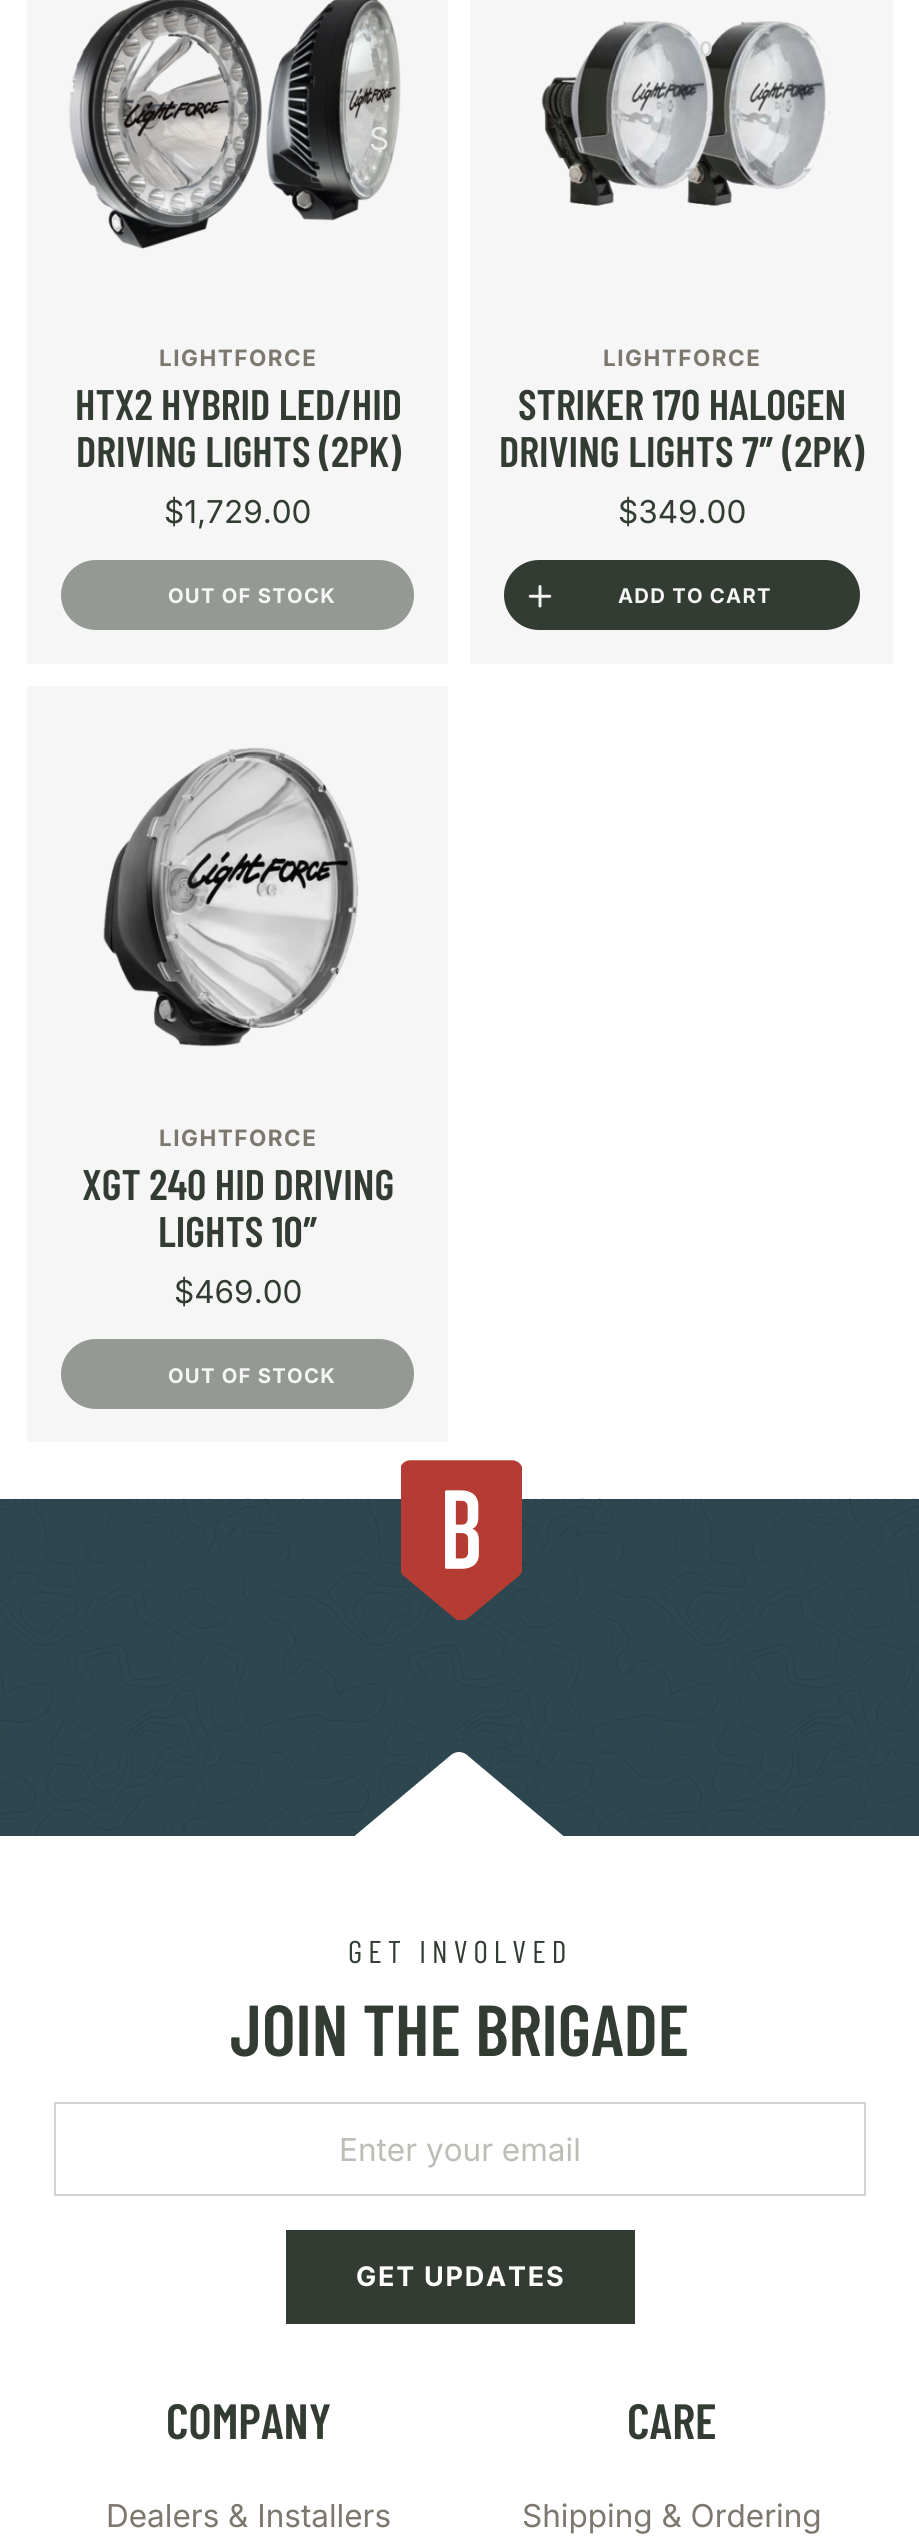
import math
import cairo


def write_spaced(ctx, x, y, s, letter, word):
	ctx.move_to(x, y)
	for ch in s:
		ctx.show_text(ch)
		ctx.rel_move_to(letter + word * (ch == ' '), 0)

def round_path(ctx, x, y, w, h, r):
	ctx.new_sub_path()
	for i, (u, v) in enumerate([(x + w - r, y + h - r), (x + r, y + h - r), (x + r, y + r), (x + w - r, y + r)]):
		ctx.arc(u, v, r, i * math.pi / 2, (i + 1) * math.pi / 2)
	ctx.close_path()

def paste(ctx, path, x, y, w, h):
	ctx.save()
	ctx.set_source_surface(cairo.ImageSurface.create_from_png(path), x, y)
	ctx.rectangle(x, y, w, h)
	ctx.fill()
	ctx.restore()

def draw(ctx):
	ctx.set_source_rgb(1, 1, 1)
	ctx.paint()
	ctx.set_source_rgb(0.961, 0.961, 0.961)
	ctx.rectangle(27, 686, 421, 756)
	ctx.rectangle(470, 0, 423, 664)
	ctx.rectangle(27, 0, 421, 664)
	ctx.fill()
	paste(ctx, 'media/2.png', 541, 21, 290, 185)
	ctx.select_font_face('Inter', cairo.FONT_SLANT_NORMAL, cairo.FONT_WEIGHT_BOLD)
	ctx.set_font_size(20.25)
	ctx.set_source_rgb(0.827, 0.831, 0.831)
	write_spaced(ctx, 699, 56, '0', 1.75, 0)
	paste(ctx, 'media/1.png', 68, 0, 333, 249)
	ctx.select_font_face('Inter')
	ctx.set_font_size(31.5)
	ctx.set_source_rgb(0.914, 0.918, 0.914)
	ctx.move_to(369, 150)
	ctx.show_text('S')
	ctx.select_font_face('Inter', cairo.FONT_SLANT_NORMAL, cairo.FONT_WEIGHT_BOLD)
	ctx.set_font_size(22.5)
	ctx.set_source_rgb(0.49, 0.471, 0.431)
	write_spaced(ctx, 159, 366, 'LIGHTFORCE', 1.5, 0)
	ctx.select_font_face('Barlow Condensed SemiBold')
	ctx.set_font_size(42.75)
	ctx.set_source_rgb(0.196, 0.235, 0.196)
	ctx.move_to(75, 420)
	ctx.show_text('HTX2 HYBRID LED/HID')
	ctx.move_to(76, 467)
	ctx.show_text('DRIVING LIGHTS (2PK)')
	ctx.select_font_face('Inter')
	ctx.set_font_size(31.5)
	ctx.move_to(164, 523)
	ctx.show_text('$1,729.00')
	ctx.set_source_rgb(0.58, 0.6, 0.58)
	round_path(ctx, 62, 561, 351, 68, 34)
	ctx.fill_preserve()
	ctx.stroke()
	ctx.select_font_face('Inter', cairo.FONT_SLANT_NORMAL, cairo.FONT_WEIGHT_BOLD)
	ctx.set_font_size(20.25)
	ctx.set_source_rgb(0.961, 0.961, 0.961)
	write_spaced(ctx, 168, 603, 'OUT OF STOCK', 1.25, 0)
	ctx.set_font_size(22.5)
	ctx.set_source_rgb(0.49, 0.471, 0.431)
	write_spaced(ctx, 603, 366, 'LIGHTFORCE', 1.5, 0)
	ctx.select_font_face('Barlow Condensed SemiBold')
	ctx.set_font_size(42.75)
	ctx.set_source_rgb(0.196, 0.235, 0.196)
	ctx.move_to(518, 420)
	ctx.show_text('STRIKER 170 HALOGEN')
	ctx.move_to(499, 467)
	ctx.show_text('DRIVING LIGHTS 7″ (2PK)')
	ctx.select_font_face('Inter')
	ctx.set_font_size(31.5)
	ctx.move_to(618, 523)
	ctx.show_text('$349.00')
	round_path(ctx, 505, 561, 354, 68, 34)
	ctx.fill_preserve()
	ctx.stroke()
	paste(ctx, 'media/3.png', 528, 585, 24, 23)
	ctx.select_font_face('Inter', cairo.FONT_SLANT_NORMAL, cairo.FONT_WEIGHT_BOLD)
	ctx.set_font_size(20.25)
	ctx.set_source_rgb(0.961, 0.961, 0.961)
	write_spaced(ctx, 618, 603, 'ADD TO CART', 1.25, 0)
	paste(ctx, 'media/4.png', 103, 747, 256, 300)
	ctx.set_font_size(22.5)
	ctx.set_source_rgb(0.49, 0.471, 0.431)
	write_spaced(ctx, 159, 1146, 'LIGHTFORCE', 1.5, 0)
	ctx.select_font_face('Barlow Condensed SemiBold')
	ctx.set_font_size(42.75)
	ctx.set_source_rgb(0.196, 0.235, 0.196)
	ctx.move_to(82, 1200)
	ctx.show_text('XGT 240 HID DRIVING')
	ctx.move_to(158, 1247)
	ctx.show_text('LIGHTS 10″')
	ctx.select_font_face('Inter')
	ctx.set_font_size(31.5)
	ctx.move_to(174, 1303)
	ctx.show_text('$469.00')
	ctx.set_source_rgb(0.58, 0.6, 0.58)
	round_path(ctx, 62, 1340, 351, 68, 34)
	ctx.fill_preserve()
	ctx.stroke()
	ctx.select_font_face('Inter', cairo.FONT_SLANT_NORMAL, cairo.FONT_WEIGHT_BOLD)
	ctx.set_font_size(20.25)
	ctx.set_source_rgb(0.961, 0.961, 0.961)
	write_spaced(ctx, 168, 1383, 'OUT OF STOCK', 1.25, 0)
	ctx.set_source_rgb(0.176, 0.275, 0.314)
	ctx.rectangle(0, 1499, 919, 337)
	ctx.fill()
	paste(ctx, 'media/5.png', 0, 1498, 919, 338)
	paste(ctx, 'media/6.png', 401, 1460, 121, 160)
	ctx.set_source_rgb(1, 1, 1)
	ctx.new_path()
	ctx.move_to(335, 1846)
	ctx.curve_to(344, 1846, 351, 1839, 351, 1839)
	ctx.line_to(451, 1755)
	ctx.curve_to(456, 1751, 462, 1751, 467, 1755)
	ctx.line_to(567, 1839)
	ctx.curve_to(567, 1839, 574, 1846, 583, 1846)
	ctx.close_path()
	ctx.fill()
	ctx.select_font_face('Barlow Condensed')
	ctx.set_font_size(31.5)
	ctx.set_source_rgb(0.196, 0.235, 0.196)
	write_spaced(ctx, 348, 1963, 'GET INVOLVED', 6, 0)
	ctx.select_font_face('Barlow Condensed SemiBold')
	ctx.set_font_size(72)
	ctx.move_to(230, 2056)
	ctx.show_text('JOIN THE BRIGADE')
	ctx.rectangle(55, 2103, 810, 92)
	ctx.set_source_rgb(0.835, 0.827, 0.816)
	ctx.stroke()
	ctx.select_font_face('Inter')
	ctx.set_font_size(31.5)
	ctx.set_source_rgb(0.745, 0.737, 0.718)
	ctx.move_to(339, 2161)
	ctx.show_text('Enter your email')
	ctx.set_source_rgb(0.196, 0.235, 0.196)
	ctx.rectangle(286, 2230, 349, 94)
	ctx.fill()
	ctx.select_font_face('Inter', cairo.FONT_SLANT_NORMAL, cairo.FONT_WEIGHT_BOLD)
	ctx.set_font_size(27)
	ctx.set_source_rgb(1, 1, 1)
	write_spaced(ctx, 356, 2286, 'GET UPDATES', 1.75, 0)
	ctx.select_font_face('Barlow Condensed SemiBold')
	ctx.set_font_size(49.5)
	ctx.set_source_rgb(0.196, 0.235, 0.196)
	ctx.move_to(166, 2439)
	ctx.show_text('COMPANY')
	ctx.select_font_face('Inter')
	ctx.set_font_size(31.5)
	ctx.set_source_rgb(0.49, 0.471, 0.431)
	ctx.move_to(106, 2527)
	ctx.show_text('Dealers & Installers')
	ctx.select_font_face('Barlow Condensed SemiBold')
	ctx.set_font_size(49.5)
	ctx.set_source_rgb(0.196, 0.235, 0.196)
	ctx.move_to(627, 2439)
	ctx.show_text('CARE')
	ctx.select_font_face('Inter')
	ctx.set_font_size(31.5)
	ctx.set_source_rgb(0.49, 0.471, 0.431)
	ctx.move_to(522, 2527)
	ctx.show_text('Shipping & Ordering')


surface = cairo.ImageSurface(cairo.FORMAT_RGB24, 919, 2547)
ctx = cairo.Context(surface)
options = cairo.FontOptions()
options.set_hint_metrics(cairo.HINT_METRICS_OFF)
options.set_hint_style(cairo.HINT_STYLE_NONE)
ctx.set_font_options(options)
ctx.set_miter_limit(4)
draw(ctx)
surface.write_to_png('image.png')
